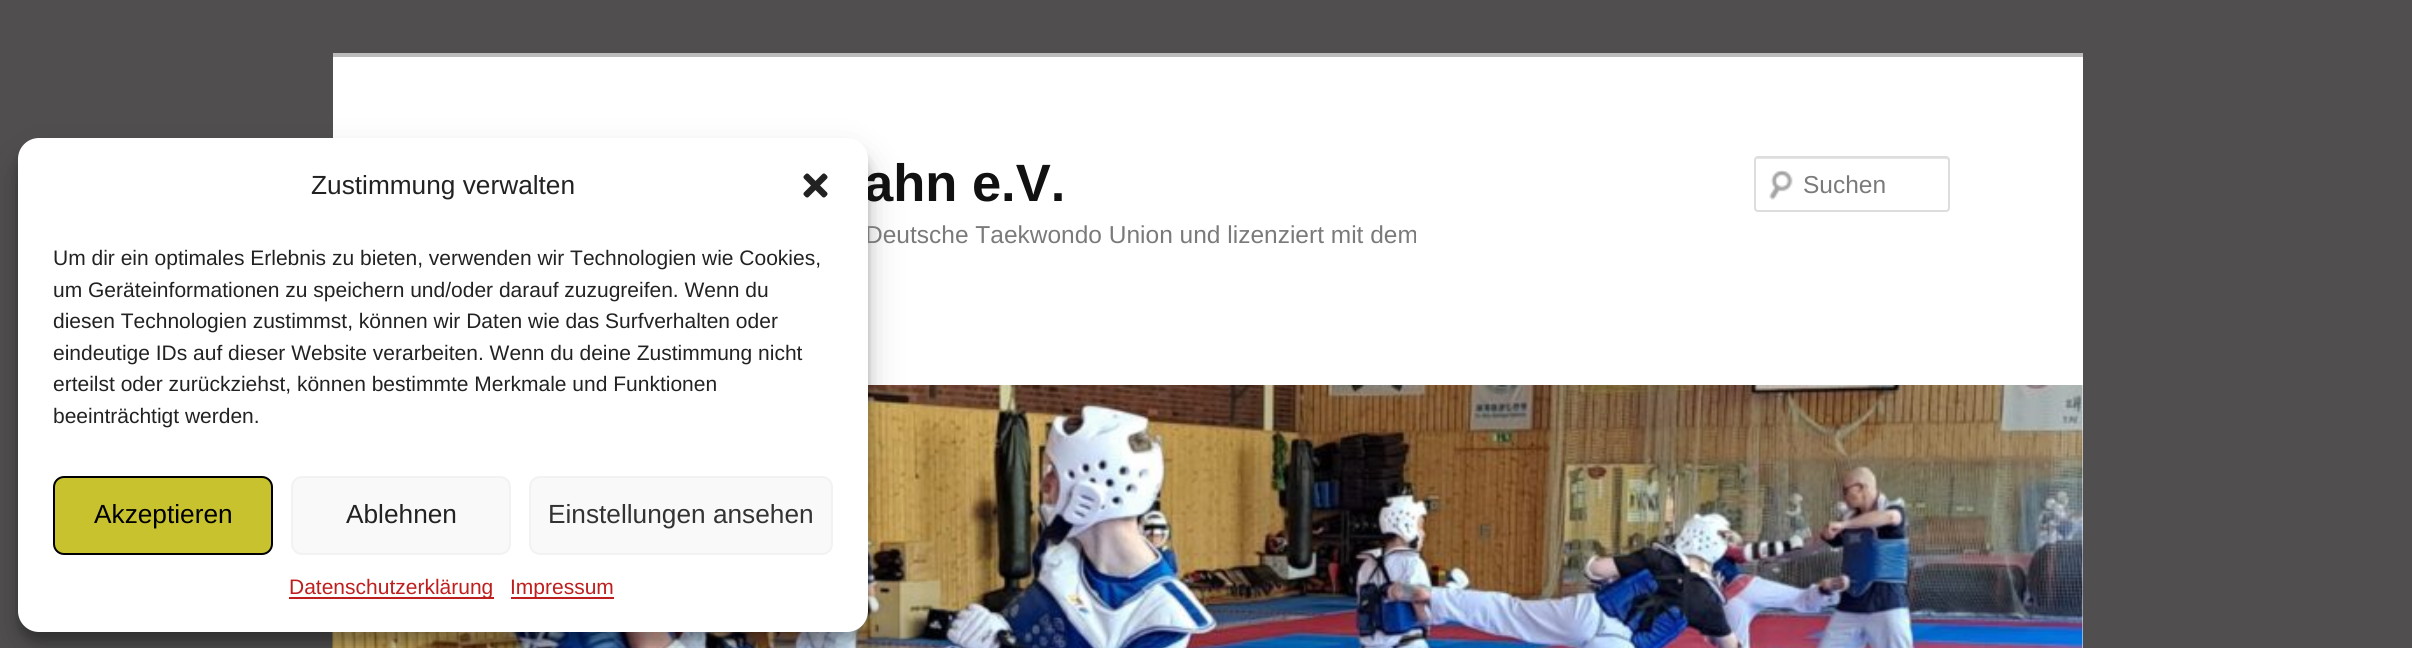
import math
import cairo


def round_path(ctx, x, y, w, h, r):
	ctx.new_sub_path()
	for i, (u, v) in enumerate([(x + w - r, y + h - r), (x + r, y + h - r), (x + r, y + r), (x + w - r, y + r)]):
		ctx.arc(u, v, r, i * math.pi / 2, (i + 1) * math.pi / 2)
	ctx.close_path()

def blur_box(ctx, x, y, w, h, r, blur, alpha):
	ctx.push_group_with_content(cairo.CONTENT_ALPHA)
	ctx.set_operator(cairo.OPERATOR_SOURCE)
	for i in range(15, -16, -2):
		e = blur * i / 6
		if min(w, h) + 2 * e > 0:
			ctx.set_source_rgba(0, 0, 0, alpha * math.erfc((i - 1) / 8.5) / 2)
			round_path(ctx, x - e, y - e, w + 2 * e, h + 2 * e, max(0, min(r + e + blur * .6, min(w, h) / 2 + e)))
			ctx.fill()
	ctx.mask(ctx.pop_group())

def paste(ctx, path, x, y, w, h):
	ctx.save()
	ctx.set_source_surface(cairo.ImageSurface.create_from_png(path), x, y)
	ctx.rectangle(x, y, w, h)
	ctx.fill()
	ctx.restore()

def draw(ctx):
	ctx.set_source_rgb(0.314, 0.306, 0.306)
	ctx.paint()
	ctx.set_source_rgb(1, 1, 1)
	ctx.rectangle(333, 57, 1750, 591)
	ctx.fill()
	paste(ctx, 'media/3.png', 332, 385, 1751, 263)
	ctx.set_source_rgb(0, 0, 0)
	blur_box(ctx, 18, 149, 850, 493, 21, 5, 0.23)
	blur_box(ctx, 18, 156, 850, 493, 21, 17.5, 0.19)
	ctx.select_font_face('Liberation Sans', cairo.FONT_SLANT_NORMAL, cairo.FONT_WEIGHT_BOLD)
	ctx.set_font_size(52.5)
	ctx.set_source_rgb(0.067, 0.067, 0.067)
	ctx.move_to(864, 201)
	ctx.show_text('ahn e.V.')
	ctx.select_font_face('Liberation Sans')
	ctx.set_font_size(24.5)
	ctx.set_source_rgb(0.478, 0.478, 0.478)
	ctx.move_to(865, 243)
	ctx.show_text('Deutsche Taekwondo Union und lizenziert mit dem')
	ctx.set_source_rgb(1, 1, 1)
	round_path(ctx, 18, 138, 850, 494, 21)
	ctx.fill()
	ctx.set_font_size(26.25)
	ctx.set_source_rgb(0.133, 0.133, 0.133)
	ctx.move_to(311, 194)
	ctx.show_text('Zustimmung verwalten')
	paste(ctx, 'media/1.png', 803, 173, 25, 25)
	ctx.set_font_size(21)
	for x, y, s in [
		(53, 265, 'Um dir ein optimales Erlebnis zu bieten, verwenden wir Technologien wie Cookies,'),
		(53, 297, 'um Geräteinformationen zu speichern und/oder darauf zuzugreifen. Wenn du'),
		(53, 328, 'diesen Technologien zustimmst, können wir Daten wie das Surfverhalten oder'),
		(53, 360, 'eindeutige IDs auf dieser Website verarbeiten. Wenn du deine Zustimmung nicht'),
		(53, 391, 'erteilst oder zurückziehst, können bestimmte Merkmale und Funktionen'),
		(53, 423, 'beeinträchtigt werden.'),
	]:
		ctx.move_to(x, y)
		ctx.show_text(s)
	ctx.set_source_rgb(0.78, 0.761, 0.18)
	round_path(ctx, 54, 477, 218, 77, 10)
	ctx.fill_preserve()
	ctx.set_source_rgb(0, 0, 0)
	ctx.stroke()
	ctx.set_font_size(26.25)
	ctx.move_to(94, 523)
	ctx.show_text('Akzeptieren')
	ctx.set_source_rgb(0.976, 0.976, 0.976)
	round_path(ctx, 292, 477, 218, 77, 10)
	ctx.fill_preserve()
	ctx.set_source_rgb(0.949, 0.949, 0.949)
	ctx.stroke()
	ctx.set_source_rgb(0.133, 0.133, 0.133)
	ctx.move_to(346, 523)
	ctx.show_text('Ablehnen')
	ctx.set_source_rgb(0.976, 0.976, 0.976)
	round_path(ctx, 530, 477, 302, 77, 10)
	ctx.fill_preserve()
	ctx.set_source_rgb(0.949, 0.949, 0.949)
	ctx.stroke()
	ctx.set_source_rgb(0.2, 0.2, 0.2)
	ctx.move_to(548, 523)
	ctx.show_text('Einstellungen ansehen')
	ctx.set_source_rgb(0.745, 0.118, 0.118)
	ctx.rectangle(289, 597, 205, 2)
	ctx.fill()
	ctx.set_font_size(21)
	ctx.move_to(289, 594)
	ctx.show_text('Datenschutzerklärung')
	ctx.rectangle(511, 597, 103, 2)
	ctx.fill()
	ctx.move_to(510, 594)
	ctx.show_text('Impressum')
	ctx.set_source_rgb(0.733, 0.733, 0.733)
	ctx.rectangle(333, 53, 1750, 4)
	ctx.fill()
	paste(ctx, 'media/2.png', 1769, 170, 24, 30)
	ctx.set_source_rgb(0.902, 0.902, 0.902)
	ctx.new_path()
	ctx.move_to(1757, 159)
	ctx.line_to(1946, 159)
	ctx.line_to(1948, 160)
	ctx.line_to(1948, 161)
	ctx.line_to(1948, 160)
	ctx.curve_to(1948, 159, 1947, 158, 1946, 158)
	ctx.line_to(1757, 158)
	ctx.curve_to(1756, 158, 1755, 159, 1755, 160)
	ctx.line_to(1755, 161)
	ctx.curve_to(1755, 160, 1756, 159, 1757, 159)
	ctx.close_path()
	ctx.fill()
	round_path(ctx, 1755, 157, 194, 54, 3)
	ctx.set_source_rgb(0.867, 0.867, 0.867)
	ctx.stroke()
	ctx.set_font_size(24.5)
	ctx.set_source_rgb(0.478, 0.478, 0.478)
	ctx.move_to(1803, 193)
	ctx.show_text('Suchen')


surface = cairo.ImageSurface(cairo.FORMAT_RGB24, 2412, 648)
ctx = cairo.Context(surface)
options = cairo.FontOptions()
options.set_hint_metrics(cairo.HINT_METRICS_OFF)
options.set_hint_style(cairo.HINT_STYLE_NONE)
ctx.set_font_options(options)
ctx.set_miter_limit(4)
draw(ctx)
surface.write_to_png('image.png')
